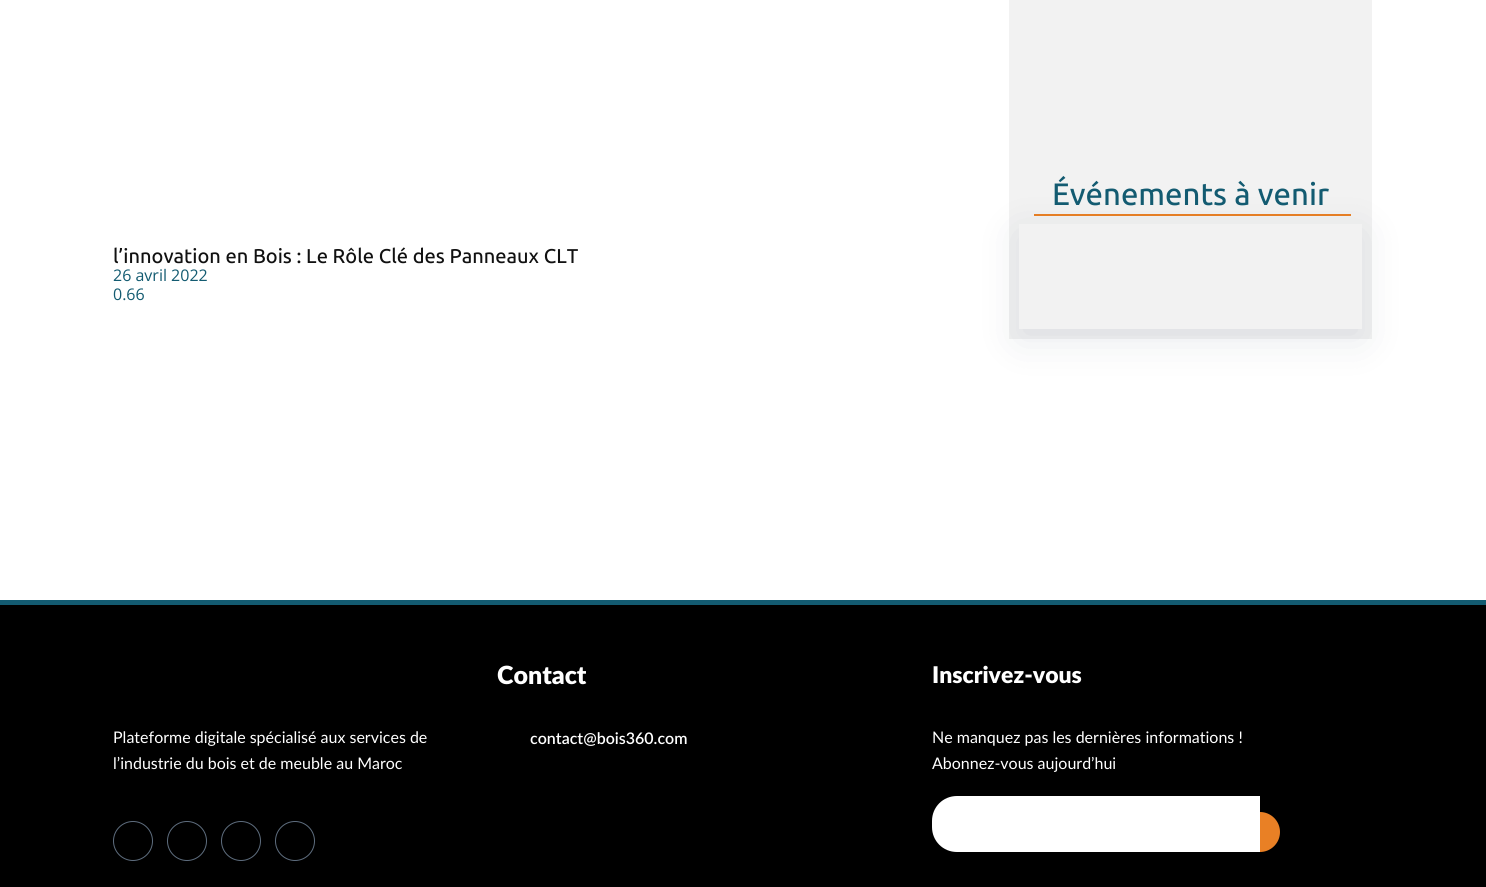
import math
import cairo


def round_path(ctx, x, y, w, h, r):
	ctx.new_sub_path()
	for i, (u, v) in enumerate([(x + w - r, y + h - r), (x + r, y + h - r), (x + r, y + r), (x + w - r, y + r)]):
		ctx.arc(u, v, r, i * math.pi / 2, (i + 1) * math.pi / 2)
	ctx.close_path()

def blur_box(ctx, x, y, w, h, r, blur, alpha):
	ctx.push_group_with_content(cairo.CONTENT_ALPHA)
	ctx.set_operator(cairo.OPERATOR_SOURCE)
	for i in range(15, -16, -2):
		e = blur * i / 6
		if min(w, h) + 2 * e > 0:
			ctx.set_source_rgba(0, 0, 0, alpha * math.erfc((i - 1) / 8.5) / 2)
			round_path(ctx, x - e, y - e, w + 2 * e, h + 2 * e, max(0, min(r + e + blur * .6, min(w, h) / 2 + e)))
			ctx.fill()
	ctx.mask(ctx.pop_group())

def draw(ctx):
	ctx.set_source_rgb(1, 1, 1)
	ctx.paint()
	ctx.set_source_rgb(0.949, 0.949, 0.949)
	ctx.rectangle(1009, 0, 363, 339)
	ctx.fill()
	ctx.set_source_rgb(0.914, 0.502, 0.145)
	ctx.rectangle(1034, 214, 317, 2)
	ctx.fill()
	ctx.save()
	ctx.set_fill_rule(cairo.FILL_RULE_EVEN_ODD)
	ctx.new_path()
	ctx.move_to(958, 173)
	ctx.line_to(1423, 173)
	ctx.line_to(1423, 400)
	ctx.line_to(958, 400)
	ctx.close_path()
	ctx.move_to(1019, 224)
	ctx.line_to(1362, 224)
	ctx.line_to(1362, 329)
	ctx.line_to(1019, 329)
	ctx.close_path()
	ctx.clip()
	ctx.set_source_rgb(0.024, 0.086, 0.227)
	blur_box(ctx, 1019, 234, 343, 105, 0, 20, 0.1)
	ctx.restore()
	ctx.select_font_face('Ubuntu Medium')
	ctx.set_font_size(31)
	ctx.set_source_rgb(0.075, 0.357, 0.443)
	ctx.move_to(1052, 205)
	ctx.show_text('Événements à venir')
	ctx.set_font_size(20)
	ctx.set_source_rgb(0.067, 0.067, 0.067)
	ctx.move_to(113, 263)
	ctx.show_text('l’innovation en Bois : Le Rôle Clé des Panneaux CLT')
	ctx.select_font_face('Open Sans')
	ctx.set_font_size(16)
	ctx.set_source_rgb(0.075, 0.357, 0.443)
	ctx.move_to(113, 281)
	ctx.show_text('26 avril 2022')
	ctx.move_to(113, 300)
	ctx.show_text('0.66')
	ctx.set_source_rgb(0, 0, 0)
	ctx.rectangle(0, 605, 1486, 282)
	ctx.fill()
	ctx.set_source_rgb(0.075, 0.357, 0.443)
	ctx.rectangle(0, 600, 1486, 5)
	ctx.fill()
	ctx.select_font_face('Lato')
	ctx.set_source_rgb(1, 1, 1)
	ctx.move_to(113, 743)
	ctx.show_text('Plateforme digitale spécialisé aux services de')
	ctx.move_to(113, 769)
	ctx.show_text('l’industrie du bois et de meuble au Maroc')
	ctx.new_path()
	ctx.arc(133, 841, 19.5, 0, 2 * math.pi)
	ctx.set_source_rgb(0.369, 0.427, 0.494)
	ctx.set_line_width(1)
	ctx.stroke()
	ctx.arc(187, 841, 19.5, 0, 2 * math.pi)
	ctx.stroke()
	ctx.arc(241, 841, 19.5, 0, 2 * math.pi)
	ctx.stroke()
	ctx.arc(295, 841, 19.5, 0, 2 * math.pi)
	ctx.stroke()
	ctx.select_font_face('Lato ExtraBold')
	ctx.set_font_size(25)
	ctx.set_source_rgb(1, 1, 1)
	ctx.move_to(497, 684)
	ctx.show_text('Contact')
	ctx.select_font_face('Lato SemiBold')
	ctx.set_font_size(16)
	ctx.move_to(530, 744)
	ctx.show_text('contact@bois360.com')
	ctx.select_font_face('Lato ExtraBold')
	ctx.set_font_size(23)
	ctx.move_to(932, 683)
	ctx.show_text('Inscrivez-vous')
	ctx.select_font_face('Lato')
	ctx.set_font_size(16)
	ctx.move_to(932, 743)
	ctx.show_text('Ne manquez pas les dernières informations !')
	ctx.move_to(932, 769)
	ctx.show_text('Abonnez-vous aujourd’hui')
	ctx.rectangle(957, 810, 303, 42)
	ctx.fill()
	ctx.set_fill_rule(cairo.FILL_RULE_EVEN_ODD)
	ctx.new_path()
	ctx.move_to(957, 796)
	ctx.line_to(1260, 796)
	ctx.line_to(1260, 852)
	ctx.line_to(957, 852)
	ctx.curve_to(943, 852, 932, 841, 932, 827)
	ctx.line_to(932, 821)
	ctx.curve_to(932, 807, 943, 796, 957, 796)
	ctx.close_path()
	ctx.move_to(957, 810)
	ctx.line_to(1260, 810)
	ctx.line_to(1260, 852)
	ctx.line_to(957, 852)
	ctx.close_path()
	ctx.fill()
	ctx.set_source_rgb(0.914, 0.502, 0.145)
	ctx.new_path()
	ctx.move_to(1260, 812)
	ctx.curve_to(1271, 812, 1280, 821, 1280, 832)
	ctx.curve_to(1280, 843, 1271, 852, 1260, 852)
	ctx.close_path()
	ctx.fill()


surface = cairo.ImageSurface(cairo.FORMAT_RGB24, 1486, 887)
ctx = cairo.Context(surface)
options = cairo.FontOptions()
options.set_hint_metrics(cairo.HINT_METRICS_OFF)
options.set_hint_style(cairo.HINT_STYLE_NONE)
ctx.set_font_options(options)
ctx.set_miter_limit(4)
draw(ctx)
surface.write_to_png('image.png')
